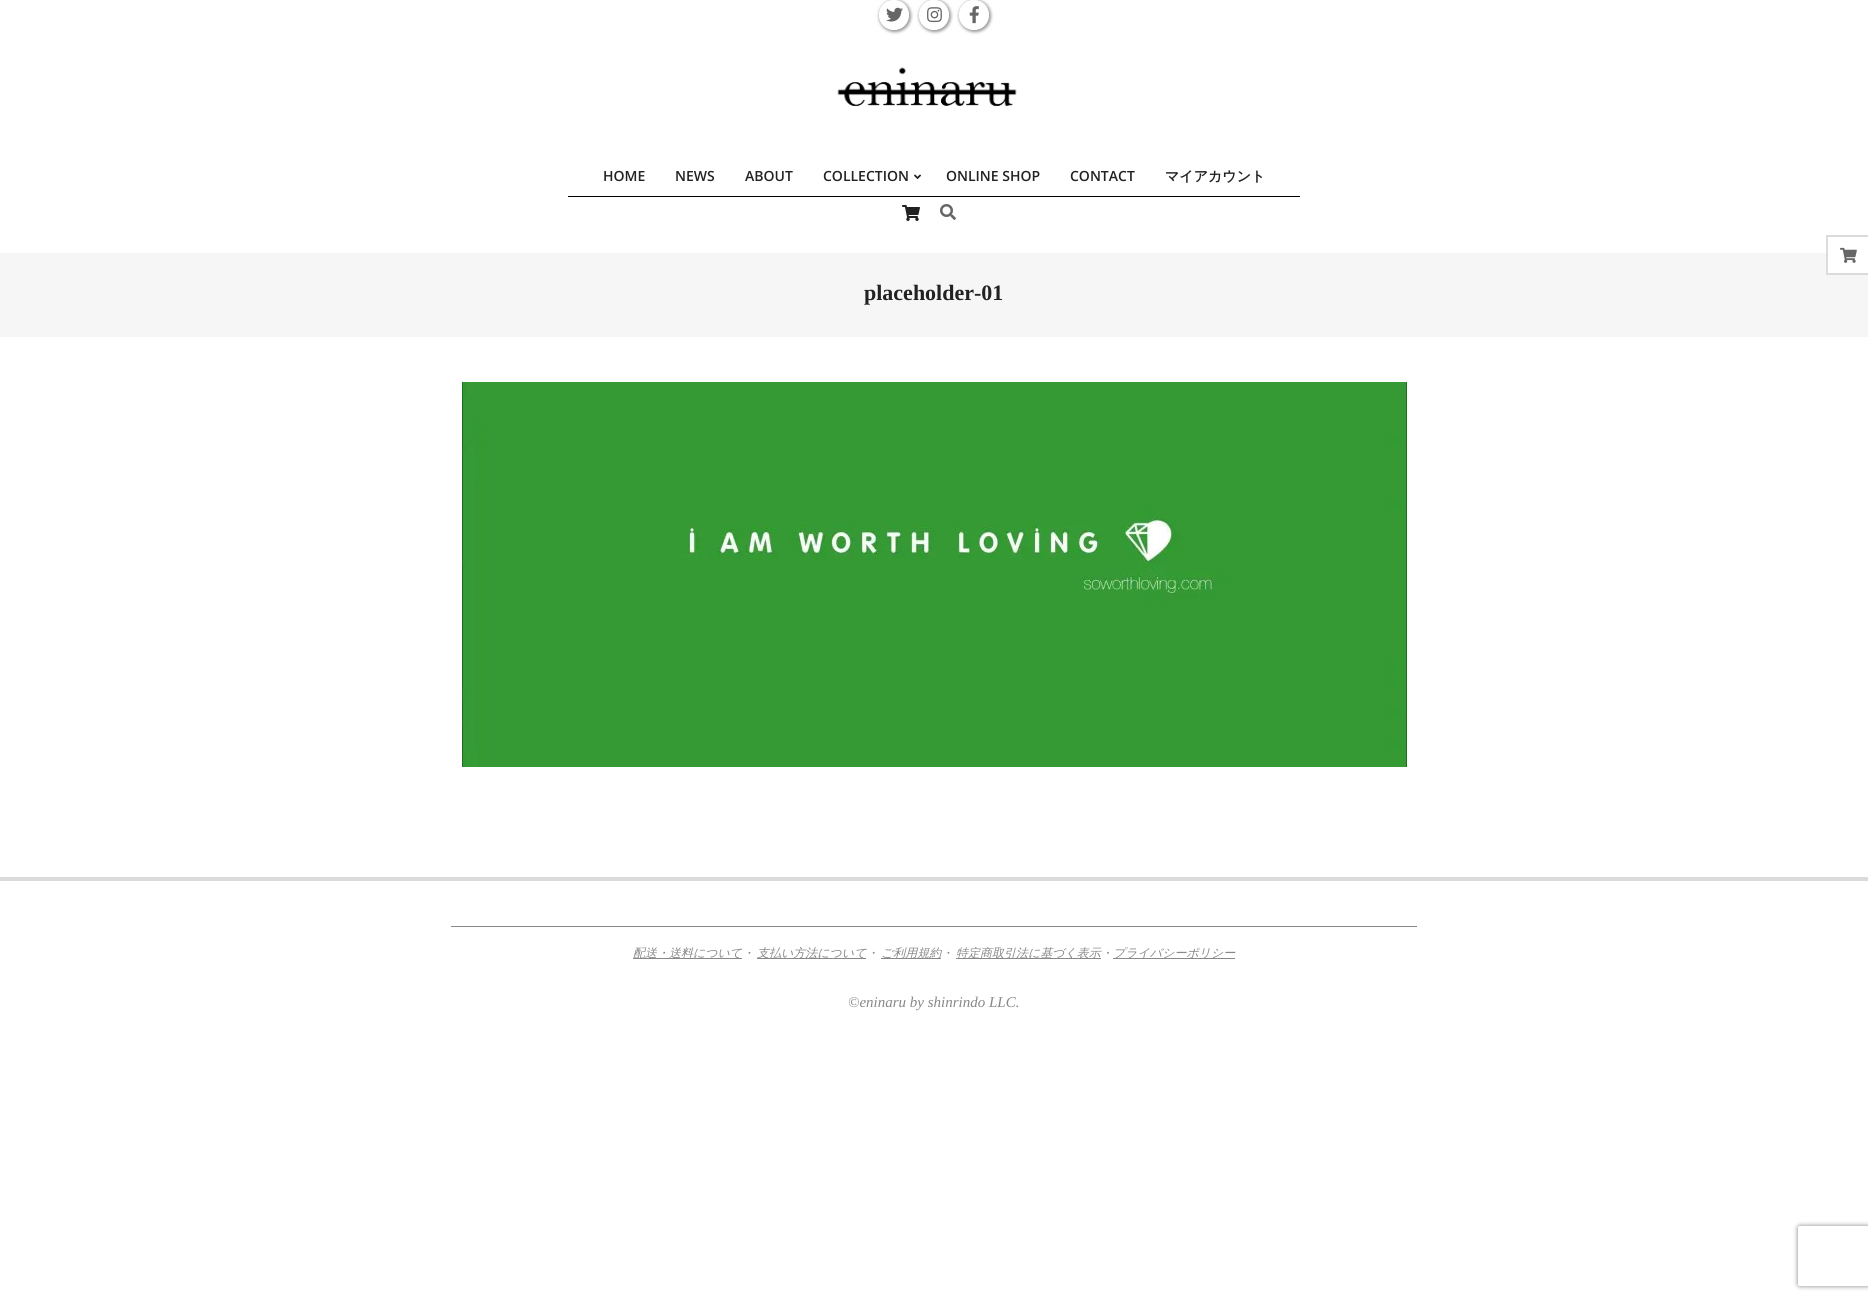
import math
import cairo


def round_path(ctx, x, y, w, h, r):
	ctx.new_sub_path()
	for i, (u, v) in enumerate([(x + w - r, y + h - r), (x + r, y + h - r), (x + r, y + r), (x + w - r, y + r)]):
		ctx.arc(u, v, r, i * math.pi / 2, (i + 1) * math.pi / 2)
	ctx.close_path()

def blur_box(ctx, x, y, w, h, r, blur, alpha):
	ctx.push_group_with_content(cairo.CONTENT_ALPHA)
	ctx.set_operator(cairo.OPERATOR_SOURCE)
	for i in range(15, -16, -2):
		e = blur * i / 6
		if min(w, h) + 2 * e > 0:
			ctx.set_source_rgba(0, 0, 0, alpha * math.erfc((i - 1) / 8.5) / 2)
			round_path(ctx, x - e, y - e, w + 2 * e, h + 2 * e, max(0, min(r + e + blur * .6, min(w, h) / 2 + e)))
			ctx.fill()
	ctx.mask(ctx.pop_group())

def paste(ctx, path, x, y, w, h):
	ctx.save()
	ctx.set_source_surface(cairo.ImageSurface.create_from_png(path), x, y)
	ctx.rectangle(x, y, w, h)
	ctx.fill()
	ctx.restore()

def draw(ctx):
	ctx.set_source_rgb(1, 1, 1)
	ctx.paint()
	ctx.save()
	ctx.set_fill_rule(cairo.FILL_RULE_EVEN_ODD)
	ctx.new_path()
	ctx.move_to(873, 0)
	ctx.line_to(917, 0)
	ctx.line_to(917, 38)
	ctx.line_to(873, 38)
	ctx.close_path()
	ctx.move_to(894, 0)
	ctx.curve_to(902.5, 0, 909, 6.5, 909, 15)
	ctx.curve_to(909, 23.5, 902.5, 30, 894, 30)
	ctx.curve_to(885.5, 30, 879, 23.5, 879, 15)
	ctx.curve_to(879, 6.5, 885.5, 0, 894, 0)
	ctx.close_path()
	ctx.clip()
	ctx.set_source_rgb(0, 0, 0)
	blur_box(ctx, 879, 0, 32, 32, 16, 1.5, 0.4)
	ctx.restore()
	paste(ctx, 'media/1.png', 886, 7, 17, 15)
	ctx.save()
	ctx.set_fill_rule(cairo.FILL_RULE_EVEN_ODD)
	ctx.new_path()
	ctx.move_to(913, 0)
	ctx.line_to(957, 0)
	ctx.line_to(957, 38)
	ctx.line_to(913, 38)
	ctx.close_path()
	ctx.move_to(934, 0)
	ctx.curve_to(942.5, 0, 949, 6.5, 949, 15)
	ctx.curve_to(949, 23.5, 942.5, 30, 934, 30)
	ctx.curve_to(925.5, 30, 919, 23.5, 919, 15)
	ctx.curve_to(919, 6.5, 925.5, 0, 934, 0)
	ctx.close_path()
	ctx.clip()
	ctx.set_source_rgb(0, 0, 0)
	blur_box(ctx, 919, 0, 32, 32, 16, 1.5, 0.4)
	ctx.restore()
	paste(ctx, 'media/2.png', 927, 7, 15, 16)
	ctx.save()
	ctx.set_fill_rule(cairo.FILL_RULE_EVEN_ODD)
	ctx.new_path()
	ctx.move_to(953, 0)
	ctx.line_to(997, 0)
	ctx.line_to(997, 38)
	ctx.line_to(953, 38)
	ctx.close_path()
	ctx.move_to(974, 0)
	ctx.curve_to(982.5, 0, 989, 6.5, 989, 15)
	ctx.curve_to(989, 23.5, 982.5, 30, 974, 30)
	ctx.curve_to(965.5, 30, 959, 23.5, 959, 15)
	ctx.curve_to(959, 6.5, 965.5, 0, 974, 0)
	ctx.close_path()
	ctx.clip()
	ctx.set_source_rgb(0, 0, 0)
	blur_box(ctx, 959, 0, 32, 32, 16, 1.5, 0.4)
	ctx.restore()
	paste(ctx, 'media/3.png', 969, 6, 10, 18)
	paste(ctx, 'media/4.png', 837, 67, 180, 40)
	ctx.set_source_rgb(0, 0, 0)
	ctx.rectangle(568, 196, 732, 1)
	ctx.fill()
	ctx.select_font_face('Open Sans SemiBold')
	ctx.set_font_size(14)
	ctx.set_source_rgb(0.133, 0.133, 0.133)
	for x, y, s in [
		(603, 181, 'HOME'),
		(675, 181, 'NEWS'),
		(745, 181, 'ABOUT'),
		(823, 181, 'COLLECTION'),
	]:
		ctx.move_to(x, y)
		ctx.show_text(s)
	paste(ctx, 'media/5.png', 914, 174, 7, 5)
	ctx.move_to(946, 181)
	ctx.show_text('ONLINE SHOP')
	ctx.move_to(1070, 181)
	ctx.show_text('CONTACT')
	ctx.select_font_face('WenQuanYi Zen Hei', cairo.FONT_SLANT_NORMAL, cairo.FONT_WEIGHT_BOLD)
	ctx.move_to(1165, 181)
	ctx.show_text('マイアカウント')
	paste(ctx, 'media/6.png', 902, 205, 18, 16)
	paste(ctx, 'media/7.png', 940, 204, 16, 16)
	ctx.set_source_rgb(0.961, 0.961, 0.961)
	ctx.rectangle(0, 253, 1868, 84)
	ctx.fill()
	ctx.select_font_face('Liberation Serif', cairo.FONT_SLANT_NORMAL, cairo.FONT_WEIGHT_BOLD)
	ctx.set_font_size(22)
	ctx.set_source_rgb(0.133, 0.133, 0.133)
	ctx.move_to(864, 300)
	ctx.show_text('placeholder-01')
	paste(ctx, 'media/8.png', 462, 382, 945, 385)
	ctx.set_source_rgb(0.859, 0.859, 0.859)
	ctx.rectangle(0, 877, 1868, 4)
	ctx.fill()
	ctx.set_source_rgb(0.533, 0.533, 0.533)
	ctx.rectangle(451, 926, 966, 1)
	ctx.rectangle(633, 958, 109, 1)
	ctx.fill()
	ctx.select_font_face('WenQuanYi Zen Hei Medium', cairo.FONT_SLANT_ITALIC)
	ctx.set_font_size(12)
	ctx.move_to(633, 957)
	ctx.show_text('配送・送料について・')
	ctx.rectangle(757, 958, 109, 1)
	ctx.fill()
	ctx.move_to(757, 957)
	ctx.show_text('支払い方法について・')
	ctx.rectangle(881, 958, 60, 1)
	ctx.fill()
	ctx.move_to(881, 957)
	ctx.show_text('ご利用規約・')
	ctx.rectangle(956, 958, 145, 1)
	ctx.fill()
	ctx.move_to(956, 957)
	ctx.show_text('特定商取引法に基づく表示・')
	ctx.rectangle(1113, 958, 122, 1)
	ctx.fill()
	ctx.move_to(1113, 957)
	ctx.show_text('プライバシーポリシー')
	ctx.select_font_face('Liberation Serif', cairo.FONT_SLANT_ITALIC)
	ctx.set_font_size(15)
	ctx.move_to(848, 1007)
	ctx.show_text('©eninaru by shinrindo LLC.')
	ctx.set_source_rgb(1, 1, 1)
	ctx.rectangle(1826, 253, 42, 22)
	ctx.fill()
	ctx.set_source_rgb(0.859, 0.859, 0.859)
	ctx.new_path()
	ctx.move_to(1826, 235)
	ctx.line_to(1868, 235)
	ctx.line_to(1868, 237)
	ctx.line_to(1828, 237)
	ctx.close_path()
	ctx.move_to(1868, 275)
	ctx.line_to(1826, 275)
	ctx.line_to(1828, 273)
	ctx.line_to(1868, 273)
	ctx.close_path()
	ctx.fill()
	ctx.set_source_rgba(0, 0, 0, 0.14)
	ctx.new_path()
	ctx.move_to(1826, 275)
	ctx.line_to(1826, 235)
	ctx.line_to(1828, 237)
	ctx.line_to(1828, 273)
	ctx.close_path()
	ctx.fill()
	paste(ctx, 'media/9.png', 1840, 247, 17, 16)
	ctx.save()
	ctx.set_fill_rule(cairo.FILL_RULE_EVEN_ODD)
	ctx.new_path()
	ctx.move_to(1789, 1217)
	ctx.line_to(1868, 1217)
	ctx.line_to(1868, 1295)
	ctx.line_to(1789, 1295)
	ctx.close_path()
	ctx.move_to(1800, 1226)
	ctx.line_to(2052, 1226)
	ctx.curve_to(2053, 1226, 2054, 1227, 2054, 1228)
	ctx.line_to(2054, 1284)
	ctx.curve_to(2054, 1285, 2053, 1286, 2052, 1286)
	ctx.line_to(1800, 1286)
	ctx.curve_to(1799, 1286, 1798, 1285, 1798, 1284)
	ctx.line_to(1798, 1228)
	ctx.curve_to(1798, 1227, 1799, 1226, 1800, 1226)
	ctx.close_path()
	ctx.clip()
	ctx.set_source_rgb(0.502, 0.502, 0.502)
	blur_box(ctx, 1798, 1226, 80, 60, 2, 2.5, 1)
	ctx.restore()


surface = cairo.ImageSurface(cairo.FORMAT_RGB24, 1868, 1300)
ctx = cairo.Context(surface)
options = cairo.FontOptions()
options.set_hint_metrics(cairo.HINT_METRICS_OFF)
options.set_hint_style(cairo.HINT_STYLE_NONE)
ctx.set_font_options(options)
ctx.set_miter_limit(4)
draw(ctx)
surface.write_to_png('image.png')
